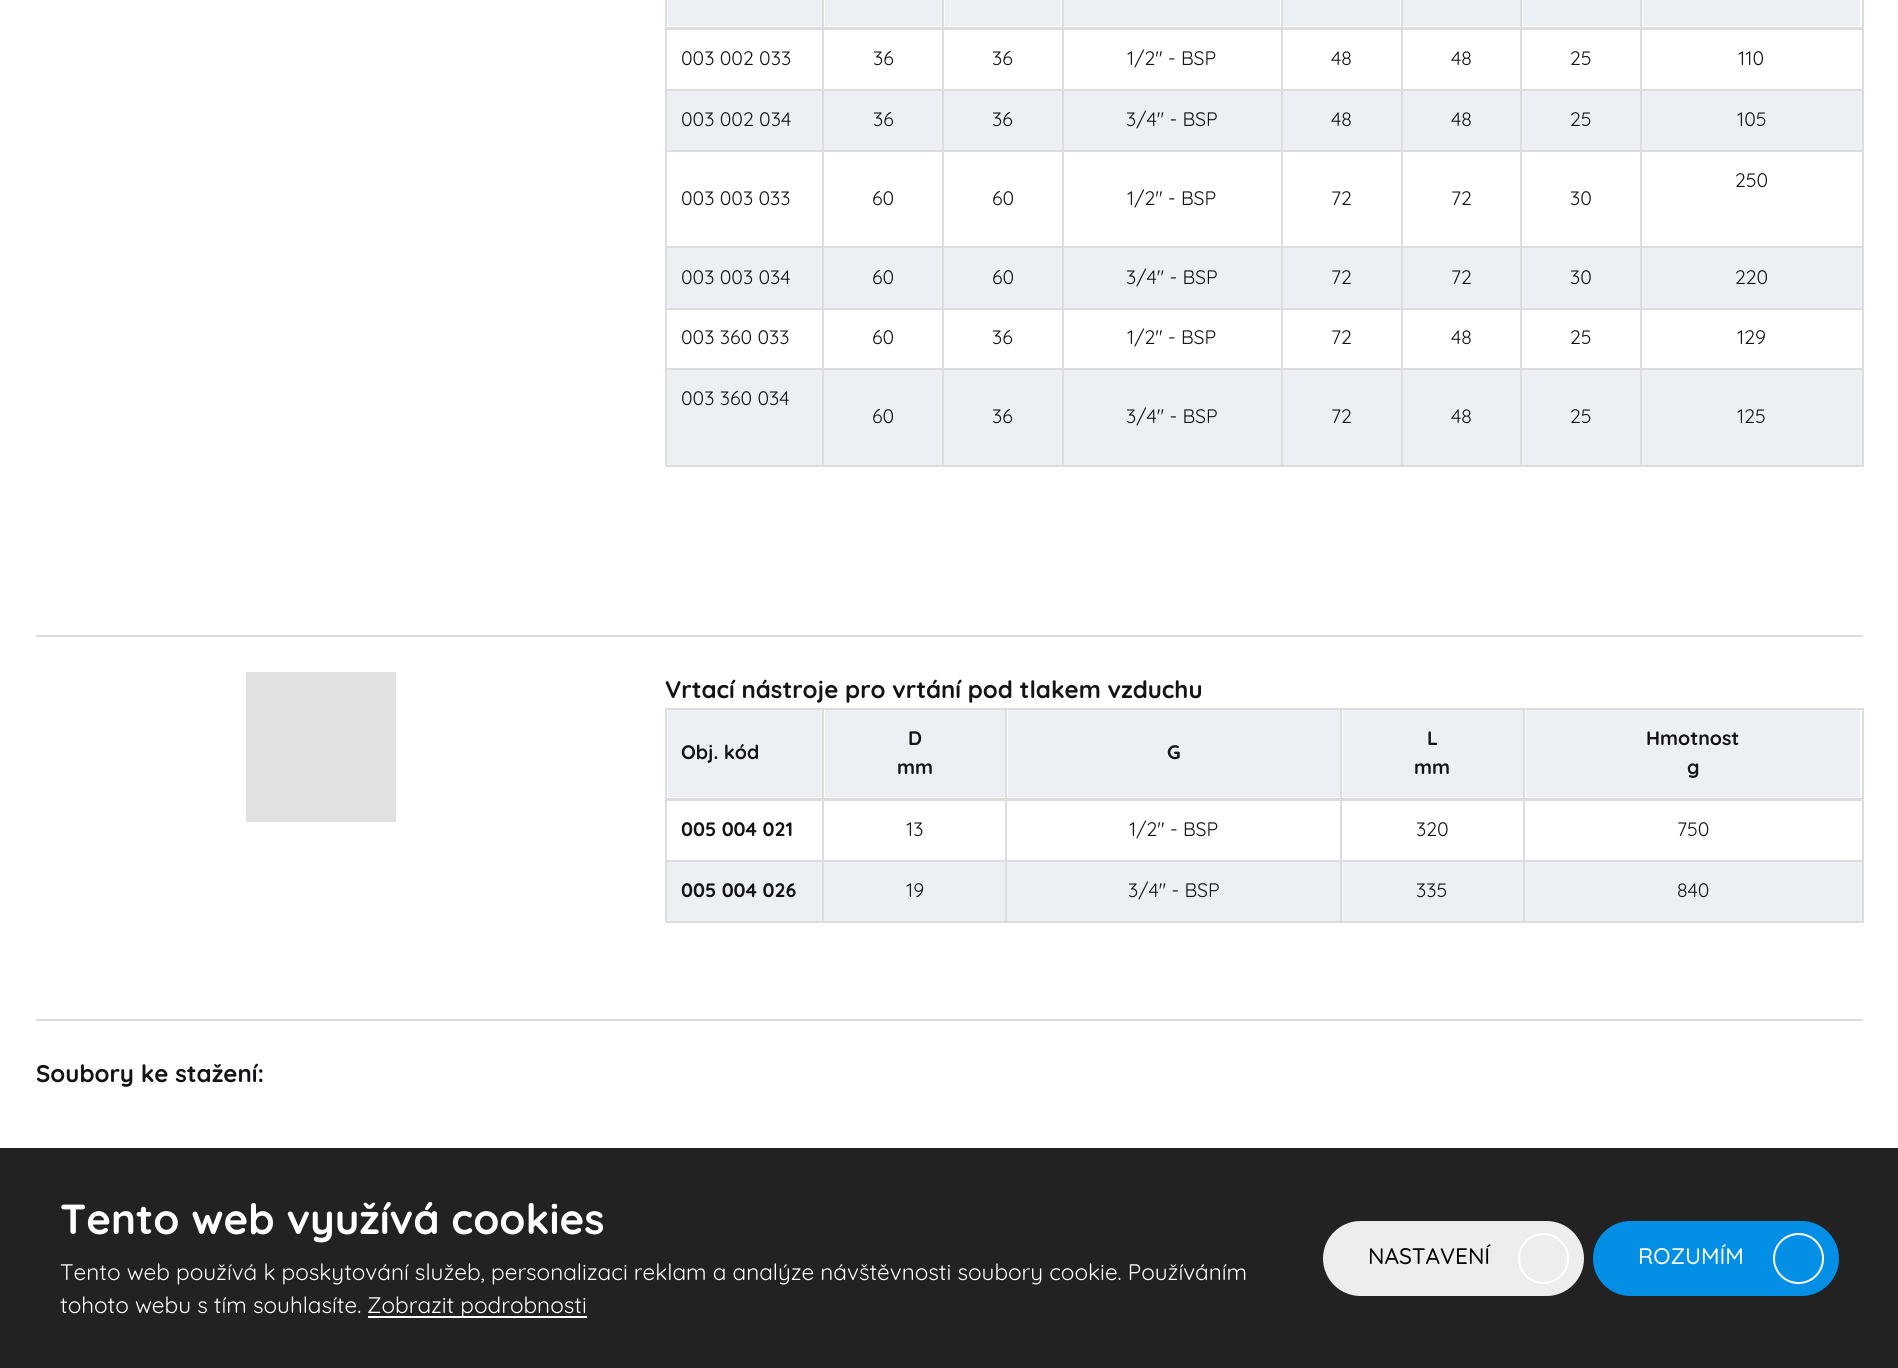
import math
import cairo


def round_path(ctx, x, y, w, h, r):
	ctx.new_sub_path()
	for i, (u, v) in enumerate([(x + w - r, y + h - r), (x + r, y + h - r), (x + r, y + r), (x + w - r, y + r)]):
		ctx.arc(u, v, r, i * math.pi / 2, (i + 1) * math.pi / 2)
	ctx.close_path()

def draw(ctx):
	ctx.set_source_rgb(1, 1, 1)
	ctx.paint()
	ctx.set_source_rgb(0.925, 0.937, 0.957)
	ctx.rectangle(1643, 0, 217, 26)
	ctx.fill()
	ctx.set_source_rgb(0.867, 0.867, 0.867)
	ctx.rectangle(1640, 89, 223, 2)
	ctx.fill()
	ctx.set_source_rgb(0.925, 0.937, 0.957)
	ctx.rectangle(667, 91, 1195, 59)
	ctx.fill()
	ctx.set_source_rgb(0.867, 0.867, 0.867)
	ctx.rectangle(1640, 150, 223, 2)
	ctx.rectangle(1640, 246, 223, 2)
	ctx.fill()
	ctx.set_source_rgb(0.925, 0.937, 0.957)
	ctx.rectangle(667, 248, 1195, 60)
	ctx.fill()
	ctx.set_source_rgb(0.867, 0.867, 0.867)
	ctx.rectangle(1640, 308, 223, 2)
	ctx.rectangle(1640, 368, 223, 2)
	ctx.fill()
	ctx.set_source_rgb(0.925, 0.937, 0.957)
	ctx.rectangle(667, 370, 1195, 95)
	ctx.fill()
	ctx.set_source_rgb(0.867, 0.867, 0.867)
	ctx.rectangle(1862, 368, 2, 99)
	ctx.rectangle(1640, 465, 223, 2)
	ctx.rectangle(1640, 368, 2, 99)
	ctx.rectangle(1520, 368, 121, 2)
	ctx.rectangle(1640, 308, 2, 61)
	ctx.rectangle(1520, 308, 121, 2)
	ctx.rectangle(1640, 246, 2, 63)
	ctx.rectangle(1520, 246, 121, 2)
	ctx.rectangle(1640, 150, 2, 98)
	ctx.rectangle(1520, 150, 121, 2)
	ctx.rectangle(1640, 89, 2, 63)
	ctx.rectangle(1520, 89, 121, 2)
	ctx.rectangle(1520, 465, 121, 2)
	ctx.rectangle(1520, 368, 2, 99)
	ctx.rectangle(1401, 368, 120, 2)
	ctx.rectangle(1520, 308, 2, 61)
	ctx.rectangle(1401, 308, 120, 2)
	ctx.rectangle(1520, 246, 2, 63)
	ctx.rectangle(1401, 246, 120, 2)
	ctx.rectangle(1520, 150, 2, 98)
	ctx.rectangle(1401, 150, 120, 2)
	ctx.rectangle(1520, 89, 2, 63)
	ctx.rectangle(1401, 89, 120, 2)
	ctx.rectangle(1401, 465, 120, 2)
	ctx.rectangle(1401, 368, 2, 99)
	ctx.rectangle(1281, 368, 122, 2)
	ctx.rectangle(1401, 308, 2, 61)
	ctx.rectangle(1281, 308, 122, 2)
	ctx.rectangle(1401, 246, 2, 63)
	ctx.rectangle(1281, 246, 122, 2)
	ctx.rectangle(1401, 150, 2, 98)
	ctx.rectangle(1281, 150, 122, 2)
	ctx.rectangle(1401, 89, 2, 63)
	ctx.rectangle(1281, 89, 122, 2)
	ctx.rectangle(1281, 465, 122, 2)
	ctx.rectangle(1281, 368, 2, 99)
	ctx.rectangle(1062, 368, 221, 2)
	ctx.rectangle(1281, 308, 2, 61)
	ctx.rectangle(1062, 308, 221, 2)
	ctx.rectangle(1281, 246, 2, 63)
	ctx.rectangle(1062, 246, 221, 2)
	ctx.rectangle(1281, 150, 2, 98)
	ctx.rectangle(1062, 150, 221, 2)
	ctx.rectangle(1281, 89, 2, 63)
	ctx.rectangle(1062, 89, 221, 2)
	ctx.rectangle(1062, 465, 221, 2)
	ctx.rectangle(1062, 368, 2, 99)
	ctx.rectangle(942, 368, 122, 2)
	ctx.rectangle(1062, 308, 2, 61)
	ctx.rectangle(942, 308, 122, 2)
	ctx.rectangle(1062, 246, 2, 63)
	ctx.rectangle(942, 246, 122, 2)
	ctx.rectangle(1062, 150, 2, 98)
	ctx.rectangle(942, 150, 122, 2)
	ctx.rectangle(1062, 89, 2, 63)
	ctx.rectangle(942, 89, 122, 2)
	ctx.rectangle(942, 465, 122, 2)
	ctx.rectangle(942, 368, 2, 99)
	ctx.rectangle(822, 368, 122, 2)
	ctx.rectangle(942, 308, 2, 61)
	ctx.rectangle(822, 308, 122, 2)
	ctx.rectangle(942, 246, 2, 63)
	ctx.rectangle(822, 246, 122, 2)
	ctx.rectangle(942, 150, 2, 98)
	ctx.rectangle(822, 150, 122, 2)
	ctx.rectangle(942, 89, 2, 63)
	ctx.rectangle(822, 89, 122, 2)
	ctx.rectangle(822, 465, 122, 2)
	ctx.rectangle(822, 368, 2, 99)
	ctx.rectangle(665, 368, 159, 2)
	ctx.rectangle(822, 308, 2, 61)
	ctx.rectangle(665, 308, 159, 2)
	ctx.rectangle(822, 246, 2, 63)
	ctx.rectangle(665, 246, 159, 2)
	ctx.rectangle(822, 150, 2, 98)
	ctx.rectangle(665, 150, 159, 2)
	ctx.rectangle(822, 89, 2, 63)
	ctx.rectangle(665, 89, 159, 2)
	ctx.rectangle(822, 0, 2, 90)
	ctx.rectangle(942, 0, 2, 90)
	ctx.rectangle(1062, 0, 2, 90)
	ctx.rectangle(1281, 0, 2, 90)
	ctx.rectangle(1401, 0, 2, 90)
	ctx.rectangle(1520, 0, 2, 90)
	ctx.rectangle(1640, 0, 2, 90)
	ctx.rectangle(665, 465, 159, 2)
	ctx.rectangle(665, 368, 2, 99)
	ctx.rectangle(665, 308, 2, 61)
	ctx.rectangle(665, 246, 2, 63)
	ctx.rectangle(665, 150, 2, 98)
	ctx.rectangle(665, 0, 2, 152)
	ctx.rectangle(1862, 308, 2, 61)
	ctx.rectangle(1862, 246, 2, 63)
	ctx.rectangle(1862, 150, 2, 98)
	ctx.rectangle(1862, 0, 2, 152)
	ctx.rectangle(665, 27, 1198, 3)
	ctx.fill()
	ctx.set_source_rgb(0.925, 0.937, 0.957)
	ctx.rectangle(668, 0, 154, 26)
	ctx.rectangle(825, 0, 117, 26)
	ctx.rectangle(945, 0, 116, 26)
	ctx.rectangle(1064, 0, 216, 26)
	ctx.rectangle(1283, 0, 117, 26)
	ctx.rectangle(1403, 0, 117, 26)
	ctx.rectangle(1523, 0, 117, 26)
	ctx.fill()
	ctx.select_font_face('Quicksand')
	ctx.set_font_size(19.5)
	ctx.set_source_rgb(0.078, 0.082, 0.086)
	for x, y, s in [
		(681, 65, '003 002 033'),
		(873, 65, '36'),
		(992, 65, '36'),
		(1127, 65, '1/2" - BSP'),
		(1331, 65, '48'),
		(1451, 65, '48'),
		(1570, 65, '25'),
		(1738, 65, '110'),
		(681, 126, '003 002 034'),
		(873, 126, '36'),
		(992, 126, '36'),
		(1126, 126, '3/4" - BSP'),
		(1331, 126, '48'),
		(1451, 126, '48'),
		(1570, 126, '25'),
		(1737, 126, '105'),
		(1735, 187, '250'),
		(681, 205, '003 003 033'),
		(872, 205, '60'),
		(992, 205, '60'),
		(1127, 205, '1/2" - BSP'),
		(1331, 205, '72'),
		(1451, 205, '72'),
		(1570, 205, '30'),
		(681, 284, '003 003 034'),
		(872, 284, '60'),
		(992, 284, '60'),
		(1126, 284, '3/4" - BSP'),
		(1331, 284, '72'),
		(1451, 284, '72'),
		(1570, 284, '30'),
		(1735, 284, '220'),
		(681, 344, '003 360 033'),
		(872, 344, '60'),
		(992, 344, '36'),
		(1127, 344, '1/2" - BSP'),
		(1331, 344, '72'),
		(1451, 344, '48'),
		(1570, 344, '25'),
		(1737, 344, '129'),
		(681, 405, '003 360 034'),
		(872, 423, '60'),
		(992, 423, '36'),
		(1126, 423, '3/4" - BSP'),
		(1331, 423, '72'),
		(1451, 423, '48'),
		(1570, 423, '25'),
		(1737, 423, '125'),
	]:
		ctx.move_to(x, y)
		ctx.show_text(s)
	ctx.set_source_rgb(0.867, 0.867, 0.867)
	ctx.rectangle(36, 635, 1827, 2)
	ctx.fill()
	ctx.set_source_rgb(0.882, 0.882, 0.882)
	ctx.rectangle(246, 672, 150, 150)
	ctx.fill()
	ctx.select_font_face('Quicksand', cairo.FONT_SLANT_NORMAL, cairo.FONT_WEIGHT_BOLD)
	ctx.set_font_size(24)
	ctx.set_source_rgb(0.078, 0.082, 0.086)
	ctx.move_to(665, 698)
	ctx.show_text('Vrtací nástroje pro vrtání pod tlakem vzduchu')
	ctx.set_source_rgb(0.925, 0.937, 0.957)
	ctx.rectangle(668, 710, 154, 87)
	ctx.fill()
	ctx.set_source_rgb(0.867, 0.867, 0.867)
	ctx.rectangle(1523, 708, 340, 2)
	ctx.rectangle(1523, 860, 340, 2)
	ctx.fill()
	ctx.set_source_rgb(0.925, 0.937, 0.957)
	ctx.rectangle(667, 862, 1195, 59)
	ctx.fill()
	ctx.set_source_rgb(0.867, 0.867, 0.867)
	ctx.rectangle(1862, 798, 2, 125)
	ctx.rectangle(1523, 921, 340, 2)
	ctx.rectangle(1523, 860, 2, 63)
	ctx.rectangle(1340, 860, 184, 2)
	ctx.rectangle(1523, 798, 2, 63)
	ctx.rectangle(1523, 708, 2, 92)
	ctx.rectangle(1340, 708, 184, 2)
	ctx.rectangle(1340, 921, 184, 2)
	ctx.rectangle(1340, 860, 2, 63)
	ctx.rectangle(1005, 860, 336, 2)
	ctx.rectangle(1340, 798, 2, 63)
	ctx.rectangle(1340, 708, 2, 92)
	ctx.rectangle(1005, 708, 336, 2)
	ctx.rectangle(1005, 921, 336, 2)
	ctx.rectangle(1005, 860, 2, 63)
	ctx.rectangle(822, 860, 185, 2)
	ctx.rectangle(1005, 798, 2, 63)
	ctx.rectangle(1005, 708, 2, 92)
	ctx.rectangle(822, 708, 185, 2)
	ctx.rectangle(822, 921, 185, 2)
	ctx.rectangle(822, 860, 2, 63)
	ctx.rectangle(665, 860, 159, 2)
	ctx.rectangle(822, 798, 2, 63)
	ctx.rectangle(822, 708, 2, 92)
	ctx.rectangle(665, 708, 159, 2)
	ctx.rectangle(665, 921, 159, 2)
	ctx.rectangle(665, 798, 2, 125)
	ctx.rectangle(665, 708, 2, 92)
	ctx.fill()
	ctx.set_font_size(19.5)
	ctx.set_source_rgb(0.078, 0.082, 0.086)
	ctx.move_to(681, 759)
	ctx.show_text('Obj. kód')
	ctx.set_source_rgb(0.925, 0.937, 0.957)
	ctx.rectangle(825, 710, 180, 87)
	ctx.fill()
	ctx.set_source_rgb(0.078, 0.082, 0.086)
	ctx.move_to(908, 745)
	ctx.show_text('D')
	ctx.move_to(897, 774)
	ctx.show_text('mm')
	ctx.set_source_rgb(0.925, 0.937, 0.957)
	ctx.rectangle(1008, 710, 332, 87)
	ctx.fill()
	ctx.set_source_rgb(0.078, 0.082, 0.086)
	ctx.move_to(1167, 759)
	ctx.show_text('G')
	ctx.set_source_rgb(0.925, 0.937, 0.957)
	ctx.rectangle(1343, 710, 180, 87)
	ctx.fill()
	ctx.set_source_rgb(0.078, 0.082, 0.086)
	ctx.move_to(1427, 745)
	ctx.show_text('L')
	ctx.move_to(1414, 774)
	ctx.show_text('mm')
	ctx.set_source_rgb(0.925, 0.937, 0.957)
	ctx.rectangle(1526, 710, 334, 87)
	ctx.fill()
	ctx.set_source_rgb(0.867, 0.867, 0.867)
	ctx.rectangle(1862, 708, 2, 92)
	ctx.rectangle(665, 798, 1198, 3)
	ctx.fill()
	ctx.set_source_rgb(0.078, 0.082, 0.086)
	for x, y, s in [
		(1646, 745, 'Hmotnost'),
		(1687, 774, 'g'),
		(681, 836, '005 004 021'),
	]:
		ctx.move_to(x, y)
		ctx.show_text(s)
	ctx.select_font_face('Quicksand')
	for x, y, s in [
		(906, 836, '13'),
		(1129, 836, '1/2" - BSP'),
		(1416, 836, '320'),
		(1677, 836, '750'),
	]:
		ctx.move_to(x, y)
		ctx.show_text(s)
	ctx.select_font_face('Quicksand', cairo.FONT_SLANT_NORMAL, cairo.FONT_WEIGHT_BOLD)
	ctx.move_to(681, 897)
	ctx.show_text('005 004 026')
	ctx.select_font_face('Quicksand')
	for x, y, s in [
		(906, 897, '19'),
		(1128, 897, '3/4" - BSP'),
		(1416, 897, '335'),
		(1677, 897, '840'),
	]:
		ctx.move_to(x, y)
		ctx.show_text(s)
	ctx.set_source_rgb(0.867, 0.867, 0.867)
	ctx.rectangle(36, 1019, 1827, 2)
	ctx.fill()
	ctx.select_font_face('Quicksand', cairo.FONT_SLANT_NORMAL, cairo.FONT_WEIGHT_BOLD)
	ctx.set_font_size(24)
	ctx.set_source_rgb(0.078, 0.082, 0.086)
	ctx.move_to(36, 1082)
	ctx.show_text('Soubory ke stažení:')
	ctx.set_source_rgb(0.133, 0.133, 0.133)
	ctx.rectangle(0, 1148, 1898, 220)
	ctx.fill()
	ctx.set_font_size(42)
	ctx.set_source_rgb(1, 1, 1)
	ctx.move_to(60, 1234)
	ctx.show_text('Tento web využívá cookies')
	ctx.select_font_face('Quicksand')
	ctx.set_font_size(22.5)
	ctx.move_to(60, 1280)
	ctx.show_text('Tento web používá k poskytování služeb, personalizaci reklam a analýze návštěvnosti soubory cookie. Používáním')
	ctx.move_to(60, 1313)
	ctx.show_text('tohoto webu s tím souhlasíte.')
	ctx.rectangle(368, 1316, 219, 2)
	ctx.fill()
	ctx.move_to(367, 1313)
	ctx.show_text('Zobrazit podrobnosti')
	ctx.set_source_rgb(0.929, 0.929, 0.929)
	round_path(ctx, 1323, 1221, 261, 75, 37.5)
	ctx.fill()
	ctx.select_font_face('Quicksand Medium')
	ctx.set_source_rgb(0, 0, 0)
	ctx.move_to(1368, 1264)
	ctx.show_text('NASTAVENÍ')
	ctx.new_path()
	ctx.arc(1543.5, 1258.5, 24.5, 0, 2 * math.pi)
	ctx.set_source_rgb(1, 1, 1)
	ctx.stroke()
	ctx.set_source_rgb(0.012, 0.561, 0.898)
	round_path(ctx, 1593, 1221, 246, 75, 37.5)
	ctx.fill()
	ctx.set_source_rgb(1, 1, 1)
	ctx.move_to(1638, 1264)
	ctx.show_text('ROZUMÍM')
	ctx.new_path()
	ctx.arc(1798.5, 1258.5, 24.5, 0, 2 * math.pi)
	ctx.stroke()


surface = cairo.ImageSurface(cairo.FORMAT_RGB24, 1898, 1368)
ctx = cairo.Context(surface)
options = cairo.FontOptions()
options.set_hint_metrics(cairo.HINT_METRICS_OFF)
options.set_hint_style(cairo.HINT_STYLE_NONE)
ctx.set_font_options(options)
ctx.set_miter_limit(4)
draw(ctx)
surface.write_to_png('image.png')
